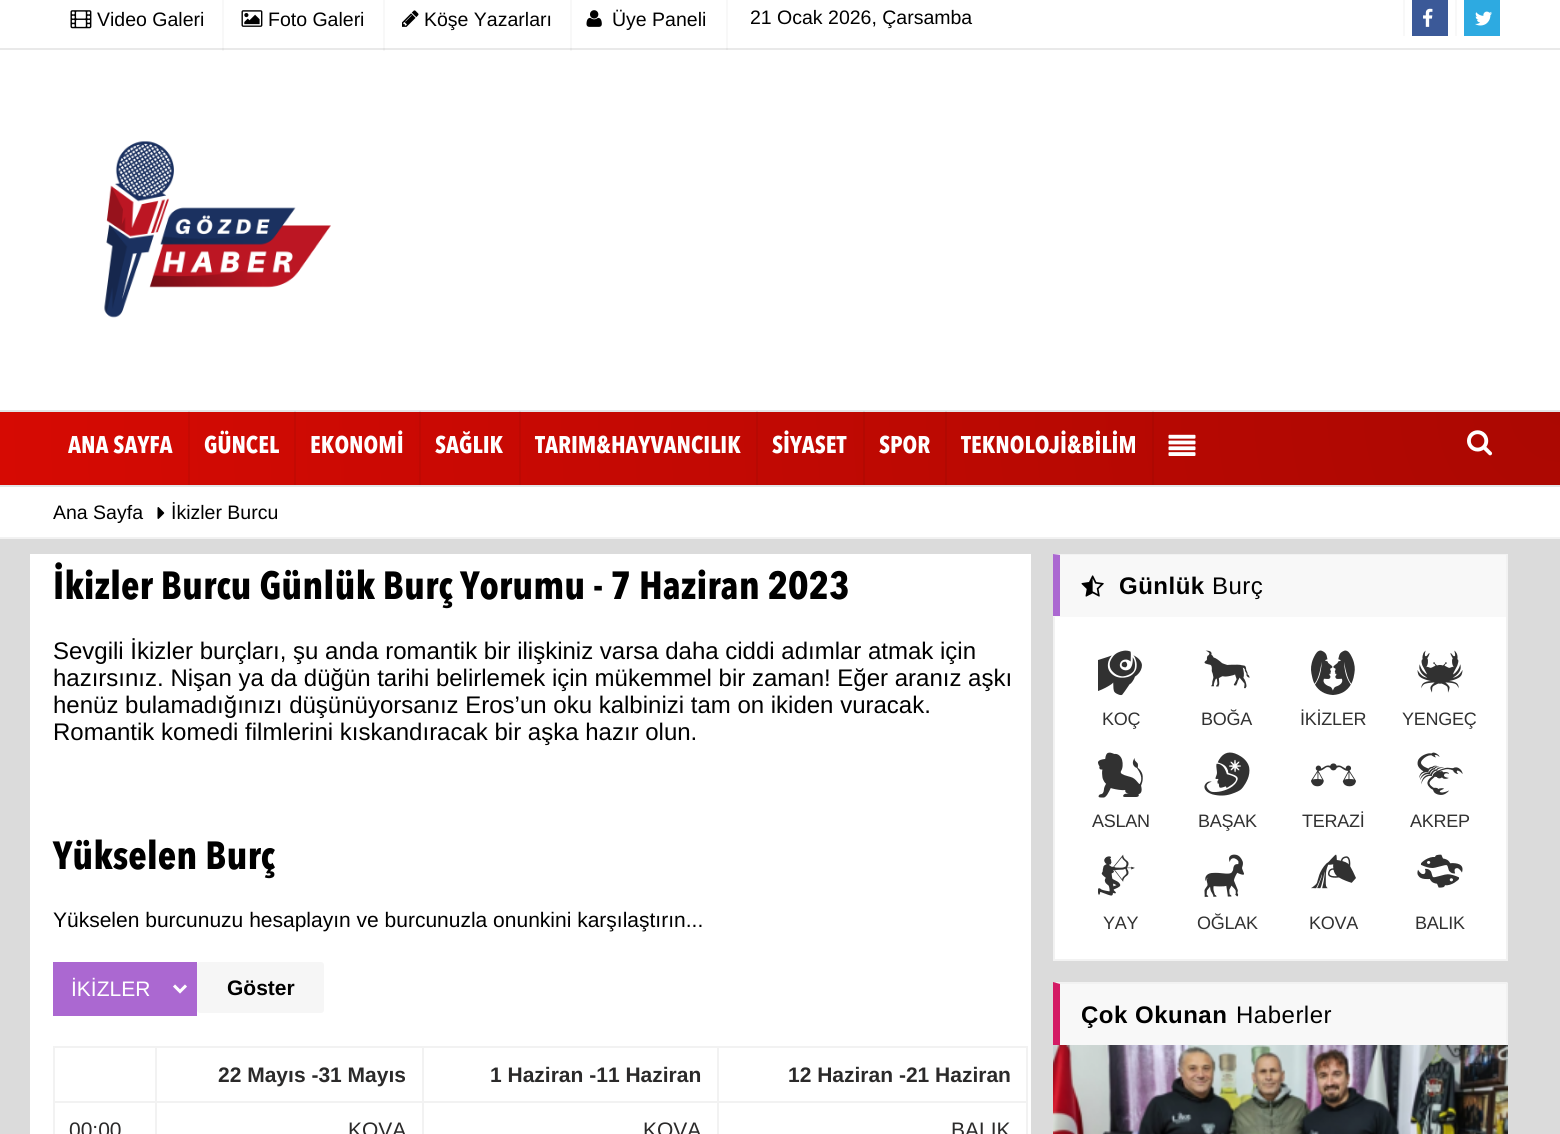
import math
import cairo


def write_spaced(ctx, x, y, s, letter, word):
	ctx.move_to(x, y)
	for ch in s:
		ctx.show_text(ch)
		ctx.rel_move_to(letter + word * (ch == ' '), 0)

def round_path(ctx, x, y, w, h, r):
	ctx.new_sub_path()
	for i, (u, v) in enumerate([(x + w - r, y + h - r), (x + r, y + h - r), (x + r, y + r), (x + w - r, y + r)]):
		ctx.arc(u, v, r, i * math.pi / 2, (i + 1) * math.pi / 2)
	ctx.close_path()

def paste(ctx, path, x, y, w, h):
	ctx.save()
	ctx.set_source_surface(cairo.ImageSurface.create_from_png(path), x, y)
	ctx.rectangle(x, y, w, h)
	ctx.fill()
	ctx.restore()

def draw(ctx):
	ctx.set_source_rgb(0.859, 0.859, 0.859)
	ctx.paint()
	ctx.set_source_rgb(1, 1, 1)
	ctx.rectangle(0, 0, 1560, 410)
	ctx.fill()
	ctx.set_source_rgb(0.969, 0.969, 0.969)
	ctx.rectangle(726, 0, 2, 50)
	ctx.rectangle(570, 0, 2, 51)
	ctx.rectangle(383, 0, 2, 51)
	ctx.rectangle(222, 0, 2, 51)
	ctx.fill()
	ctx.set_source_rgb(0.914, 0.914, 0.914)
	ctx.rectangle(0, 48, 1560, 2)
	ctx.fill()
	ctx.set_source_rgb(0.886, 0.886, 0.886)
	ctx.rectangle(726, 48, 2, 2)
	ctx.rectangle(570, 48, 2, 2)
	ctx.rectangle(383, 48, 2, 2)
	ctx.rectangle(222, 48, 2, 2)
	ctx.fill()
	paste(ctx, 'media/1.png', 70, 10, 22, 19)
	ctx.select_font_face('Liberation Sans')
	ctx.set_font_size(19.5)
	ctx.set_source_rgb(0, 0, 0)
	ctx.move_to(97, 26)
	ctx.show_text('Video Galeri')
	paste(ctx, 'media/2.png', 241, 10, 22, 17)
	ctx.move_to(268, 26)
	ctx.show_text('Foto Galeri')
	paste(ctx, 'media/3.png', 402, 10, 17, 17)
	ctx.move_to(424, 26)
	ctx.show_text('Köşe Yazarları')
	paste(ctx, 'media/4.png', 586, 10, 16, 17)
	ctx.move_to(612, 26)
	ctx.show_text('Üye Paneli')
	ctx.move_to(750, 24)
	ctx.show_text('21 Ocak 2026, Çarsamba')
	ctx.set_source_rgb(0.969, 0.969, 0.969)
	ctx.rectangle(1403, 0, 2, 36)
	ctx.fill()
	ctx.set_source_rgb(0.231, 0.349, 0.596)
	ctx.rectangle(1412, 0, 36, 36)
	ctx.fill()
	paste(ctx, 'media/5.png', 1423, 8, 10, 19)
	ctx.set_source_rgb(0.969, 0.969, 0.969)
	ctx.rectangle(1455, 0, 2, 36)
	ctx.fill()
	ctx.set_source_rgb(0.176, 0.667, 0.882)
	ctx.rectangle(1464, 0, 36, 36)
	ctx.fill()
	paste(ctx, 'media/6.png', 1475, 11, 17, 15)
	paste(ctx, 'media/7.png', 104, 141, 227, 177)
	gradient = cairo.RadialGradient(1560, 411, 0, 1560, 411, 1562)
	gradient.add_color_stop_rgba(0, 0.671, 0.031, 0.008, 1)
	gradient.add_color_stop_rgba(1, 0.839, 0.039, 0.012, 1)
	ctx.set_source(gradient)
	ctx.rectangle(0, 412, 1560, 73)
	ctx.fill()
	gradient = cairo.RadialGradient(1560, 411, 0, 1560, 411, 1562)
	gradient.add_color_stop_rgba(0, 0.635, 0.031, 0.008, 1)
	gradient.add_color_stop_rgba(1, 0.796, 0.039, 0.012, 1)
	ctx.set_source(gradient)
	ctx.rectangle(1152, 411, 2, 74)
	ctx.fill()
	ctx.rectangle(945, 411, 2, 74)
	ctx.fill()
	ctx.rectangle(863, 411, 2, 74)
	ctx.fill()
	ctx.rectangle(756, 411, 2, 74)
	ctx.fill()
	ctx.rectangle(519, 411, 2, 74)
	ctx.fill()
	ctx.rectangle(419, 411, 2, 74)
	ctx.fill()
	ctx.rectangle(294, 411, 2, 74)
	ctx.fill()
	ctx.rectangle(188, 411, 2, 74)
	ctx.fill()
	ctx.set_source_rgb(0.886, 0.898, 0.906)
	ctx.rectangle(0, 410, 1560, 2)
	ctx.fill()
	ctx.set_source_rgb(0.843, 0.855, 0.859)
	ctx.rectangle(1152, 411, 2, 1)
	ctx.rectangle(945, 411, 2, 1)
	ctx.rectangle(863, 411, 2, 1)
	ctx.rectangle(756, 411, 2, 1)
	ctx.rectangle(519, 411, 2, 1)
	ctx.rectangle(419, 411, 2, 1)
	ctx.rectangle(294, 411, 2, 1)
	ctx.rectangle(188, 411, 2, 1)
	ctx.fill()
	ctx.set_source_rgb(0.886, 0.898, 0.906)
	ctx.rectangle(0, 485, 1560, 2)
	ctx.fill()
	ctx.select_font_face('Avenir Next', cairo.FONT_SLANT_NORMAL, cairo.FONT_WEIGHT_BOLD)
	ctx.set_font_size(24)
	ctx.set_source_rgb(1, 1, 1)
	for x, y, s in [
		(68, 453, 'ANA SAYFA'),
		(204, 453, 'GÜNCEL'),
		(310, 453, 'EKONOMİ'),
		(435, 453, 'SAĞLIK'),
		(535, 453, 'TARIM&HAYVANCILIK'),
		(772, 453, 'SİYASET'),
		(879, 453, 'SPOR'),
		(961, 453, 'TEKNOLOJİ&BİLİM'),
	]:
		ctx.move_to(x, y)
		ctx.show_text(s)
	paste(ctx, 'media/8.png', 1168, 434, 28, 22)
	paste(ctx, 'media/9.png', 1467, 430, 26, 26)
	ctx.rectangle(0, 487, 1560, 50)
	ctx.fill()
	ctx.set_source_rgb(0.949, 0.949, 0.949)
	ctx.rectangle(0, 537, 1560, 2)
	ctx.fill()
	ctx.select_font_face('Liberation Sans')
	ctx.set_font_size(19.5)
	ctx.set_source_rgb(0, 0, 0)
	ctx.move_to(53, 519)
	ctx.show_text('Ana Sayfa')
	paste(ctx, 'media/10.png', 157, 507, 8, 12)
	ctx.move_to(171, 519)
	ctx.show_text('İkizler Burcu')
	ctx.set_source_rgb(1, 1, 1)
	ctx.rectangle(30, 554, 1001, 580)
	ctx.fill()
	ctx.select_font_face('Avenir Next', cairo.FONT_SLANT_NORMAL, cairo.FONT_WEIGHT_BOLD)
	ctx.set_font_size(39)
	ctx.set_source_rgb(0, 0, 0)
	ctx.move_to(53, 599)
	ctx.show_text('İkizler Burcu Günlük Burç Yorumu - 7 Haziran 2023')
	ctx.select_font_face('Liberation Sans')
	ctx.set_font_size(24)
	for x, y, s in [
		(53, 659, 'Sevgili İkizler burçları, şu anda romantik bir ilişkiniz varsa daha ciddi adımlar atmak için'),
		(53, 686, 'hazırsınız. Nişan ya da düğün tarihi belirlemek için mükemmel bir zaman! Eğer aranız aşkı'),
		(53, 713, 'henüz bulamadığınızı düşünüyorsanız Eros’un oku kalbinizi tam on ikiden vuracak.'),
		(53, 740, 'Romantik komedi filmlerini kıskandıracak bir aşka hazır olun.'),
	]:
		ctx.move_to(x, y)
		ctx.show_text(s)
	ctx.select_font_face('Avenir Next', cairo.FONT_SLANT_NORMAL, cairo.FONT_WEIGHT_BOLD)
	ctx.set_font_size(39)
	ctx.move_to(53, 869)
	ctx.show_text('Yükselen Burç')
	ctx.select_font_face('Liberation Sans')
	ctx.set_font_size(21)
	ctx.move_to(53, 927)
	ctx.show_text('Yükselen burcunuzu hesaplayın ve burcunuzla onunkini karşılaştırın...')
	ctx.set_source_rgb(0.671, 0.408, 0.82)
	ctx.rectangle(53, 962, 144, 54)
	ctx.fill()
	ctx.new_path()
	ctx.move_to(174, 985.5)
	ctx.line_to(180, 991.5)
	ctx.line_to(186, 985.5)
	ctx.set_source_rgb(1, 1, 1)
	ctx.set_line_width(3)
	ctx.stroke()
	ctx.move_to(71, 996)
	ctx.show_text('İKİZLER')
	ctx.set_source_rgb(0.961, 0.961, 0.961)
	round_path(ctx, 197, 962, 127, 51, 3)
	ctx.fill()
	ctx.select_font_face('Liberation Sans', cairo.FONT_SLANT_NORMAL, cairo.FONT_WEIGHT_BOLD)
	ctx.set_source_rgb(0, 0, 0)
	ctx.move_to(227, 995)
	ctx.show_text('Göster')
	ctx.set_source_rgb(0.949, 0.949, 0.949)
	ctx.rectangle(717, 1046, 311, 2)
	ctx.rectangle(717, 1101, 311, 2)
	ctx.rectangle(717, 1101, 2, 33)
	ctx.rectangle(422, 1101, 297, 2)
	ctx.rectangle(717, 1046, 2, 57)
	ctx.rectangle(422, 1046, 297, 2)
	ctx.rectangle(422, 1101, 2, 33)
	ctx.rectangle(155, 1101, 268, 2)
	ctx.rectangle(422, 1046, 2, 57)
	ctx.rectangle(155, 1046, 268, 2)
	ctx.rectangle(155, 1101, 2, 33)
	ctx.rectangle(53, 1101, 103, 2)
	ctx.rectangle(155, 1046, 2, 57)
	ctx.rectangle(53, 1046, 103, 2)
	ctx.rectangle(53, 1101, 2, 33)
	ctx.rectangle(53, 1046, 2, 57)
	ctx.fill()
	ctx.set_source_rgb(0.169, 0.165, 0.165)
	ctx.move_to(218, 1082)
	ctx.show_text('22 Mayıs -31 Mayıs')
	ctx.move_to(490, 1082)
	ctx.show_text('1 Haziran -11 Haziran')
	ctx.set_source_rgb(0.949, 0.949, 0.949)
	ctx.rectangle(1026, 1101, 2, 33)
	ctx.fill()
	ctx.rectangle(1026, 1046, 2, 57)
	ctx.fill()
	ctx.set_source_rgb(0.169, 0.165, 0.165)
	ctx.move_to(788, 1082)
	ctx.show_text('12 Haziran -21 Haziran')
	ctx.select_font_face('Liberation Sans')
	for x, y, s in [
		(69, 1137, '00:00'),
		(348, 1137, 'KOVA'),
		(643, 1137, 'KOVA'),
		(951, 1137, 'BALIK'),
	]:
		ctx.move_to(x, y)
		ctx.show_text(s)
	ctx.set_source_rgb(0.969, 0.969, 0.969)
	ctx.rectangle(1053, 554, 453, 63)
	ctx.fill()
	ctx.set_source_rgb(0.949, 0.949, 0.949)
	ctx.new_path()
	ctx.move_to(1053, 554)
	ctx.line_to(1508, 554)
	ctx.line_to(1506, 555)
	ctx.line_to(1060, 555)
	ctx.close_path()
	ctx.fill()
	ctx.rectangle(1506, 554, 2, 63)
	ctx.fill()
	ctx.set_source_rgb(0.671, 0.408, 0.82)
	ctx.new_path()
	ctx.move_to(1053, 616)
	ctx.line_to(1053, 554)
	ctx.line_to(1060, 555)
	ctx.line_to(1060, 616)
	ctx.close_path()
	ctx.fill()
	paste(ctx, 'media/11.png', 1081, 575, 23, 22)
	ctx.select_font_face('Liberation Sans', cairo.FONT_SLANT_NORMAL, cairo.FONT_WEIGHT_BOLD)
	ctx.set_font_size(24)
	ctx.set_source_rgb(0, 0, 0)
	write_spaced(ctx, 1119, 594, 'Günlük', 0.5, 0)
	ctx.select_font_face('Liberation Sans')
	write_spaced(ctx, 1212, 594, 'Burç', 0.5, 0)
	ctx.set_source_rgb(1, 1, 1)
	ctx.rectangle(1055, 617, 451, 342)
	ctx.fill()
	ctx.set_source_rgb(0.949, 0.949, 0.949)
	ctx.rectangle(1506, 617, 2, 343)
	ctx.rectangle(1053, 959, 455, 2)
	ctx.rectangle(1053, 617, 2, 343)
	ctx.fill()
	paste(ctx, 'media/12.png', 1098, 650, 44, 46)
	ctx.set_font_size(18)
	ctx.set_source_rgb(0.192, 0.192, 0.192)
	write_spaced(ctx, 1102, 725, 'KOÇ', -0.25, 0)
	paste(ctx, 'media/13.png', 1204, 650, 46, 39)
	write_spaced(ctx, 1201, 725, 'BOĞA', -0.25, 0)
	paste(ctx, 'media/14.png', 1311, 650, 44, 45)
	write_spaced(ctx, 1300, 725, 'İKİZLER', -0.25, 0)
	paste(ctx, 'media/15.png', 1417, 650, 46, 43)
	write_spaced(ctx, 1402, 725, 'YENGEÇ', -0.25, 0)
	paste(ctx, 'media/16.png', 1098, 752, 45, 46)
	write_spaced(ctx, 1092, 827, 'ASLAN', -0.25, 0)
	paste(ctx, 'media/17.png', 1204, 752, 46, 44)
	write_spaced(ctx, 1198, 827, 'BAŞAK', -0.25, 0)
	paste(ctx, 'media/18.png', 1311, 763, 45, 24)
	write_spaced(ctx, 1302, 827, 'TERAZİ', -0.25, 0)
	paste(ctx, 'media/19.png', 1417, 752, 46, 43)
	write_spaced(ctx, 1410, 827, 'AKREP', -0.25, 0)
	paste(ctx, 'media/20.png', 1098, 854, 37, 42)
	write_spaced(ctx, 1103, 929, 'YAY', -0.25, 0)
	paste(ctx, 'media/21.png', 1204, 854, 40, 43)
	write_spaced(ctx, 1197, 929, 'OĞLAK', -0.25, 0)
	paste(ctx, 'media/22.png', 1311, 854, 45, 35)
	write_spaced(ctx, 1309, 929, 'KOVA', -0.25, 0)
	paste(ctx, 'media/23.png', 1417, 854, 46, 34)
	write_spaced(ctx, 1415, 929, 'BALIK', -0.25, 0)
	ctx.set_source_rgb(0.969, 0.969, 0.969)
	ctx.rectangle(1056, 983, 450, 62)
	ctx.fill()
	ctx.set_source_rgb(0.949, 0.949, 0.949)
	ctx.new_path()
	ctx.move_to(1053, 982)
	ctx.line_to(1508, 982)
	ctx.line_to(1506, 984)
	ctx.line_to(1060, 984)
	ctx.close_path()
	ctx.fill()
	ctx.rectangle(1506, 983, 2, 63)
	ctx.fill()
	ctx.set_source_rgb(0.831, 0.106, 0.396)
	ctx.new_path()
	ctx.move_to(1053, 1046)
	ctx.line_to(1053, 982)
	ctx.line_to(1060, 984)
	ctx.line_to(1060, 1046)
	ctx.close_path()
	ctx.fill()
	ctx.select_font_face('Liberation Sans', cairo.FONT_SLANT_NORMAL, cairo.FONT_WEIGHT_BOLD)
	ctx.set_font_size(24)
	ctx.set_source_rgb(0, 0, 0)
	write_spaced(ctx, 1081, 1023, 'Çok Okunan', 0.5, 0)
	ctx.select_font_face('Liberation Sans')
	write_spaced(ctx, 1236, 1023, 'Haberler', 0.5, 0)
	paste(ctx, 'media/24.png', 1053, 1045, 455, 89)


surface = cairo.ImageSurface(cairo.FORMAT_RGB24, 1560, 1134)
ctx = cairo.Context(surface)
options = cairo.FontOptions()
options.set_hint_metrics(cairo.HINT_METRICS_OFF)
options.set_hint_style(cairo.HINT_STYLE_NONE)
ctx.set_font_options(options)
ctx.set_miter_limit(4)
draw(ctx)
surface.write_to_png('image.png')
